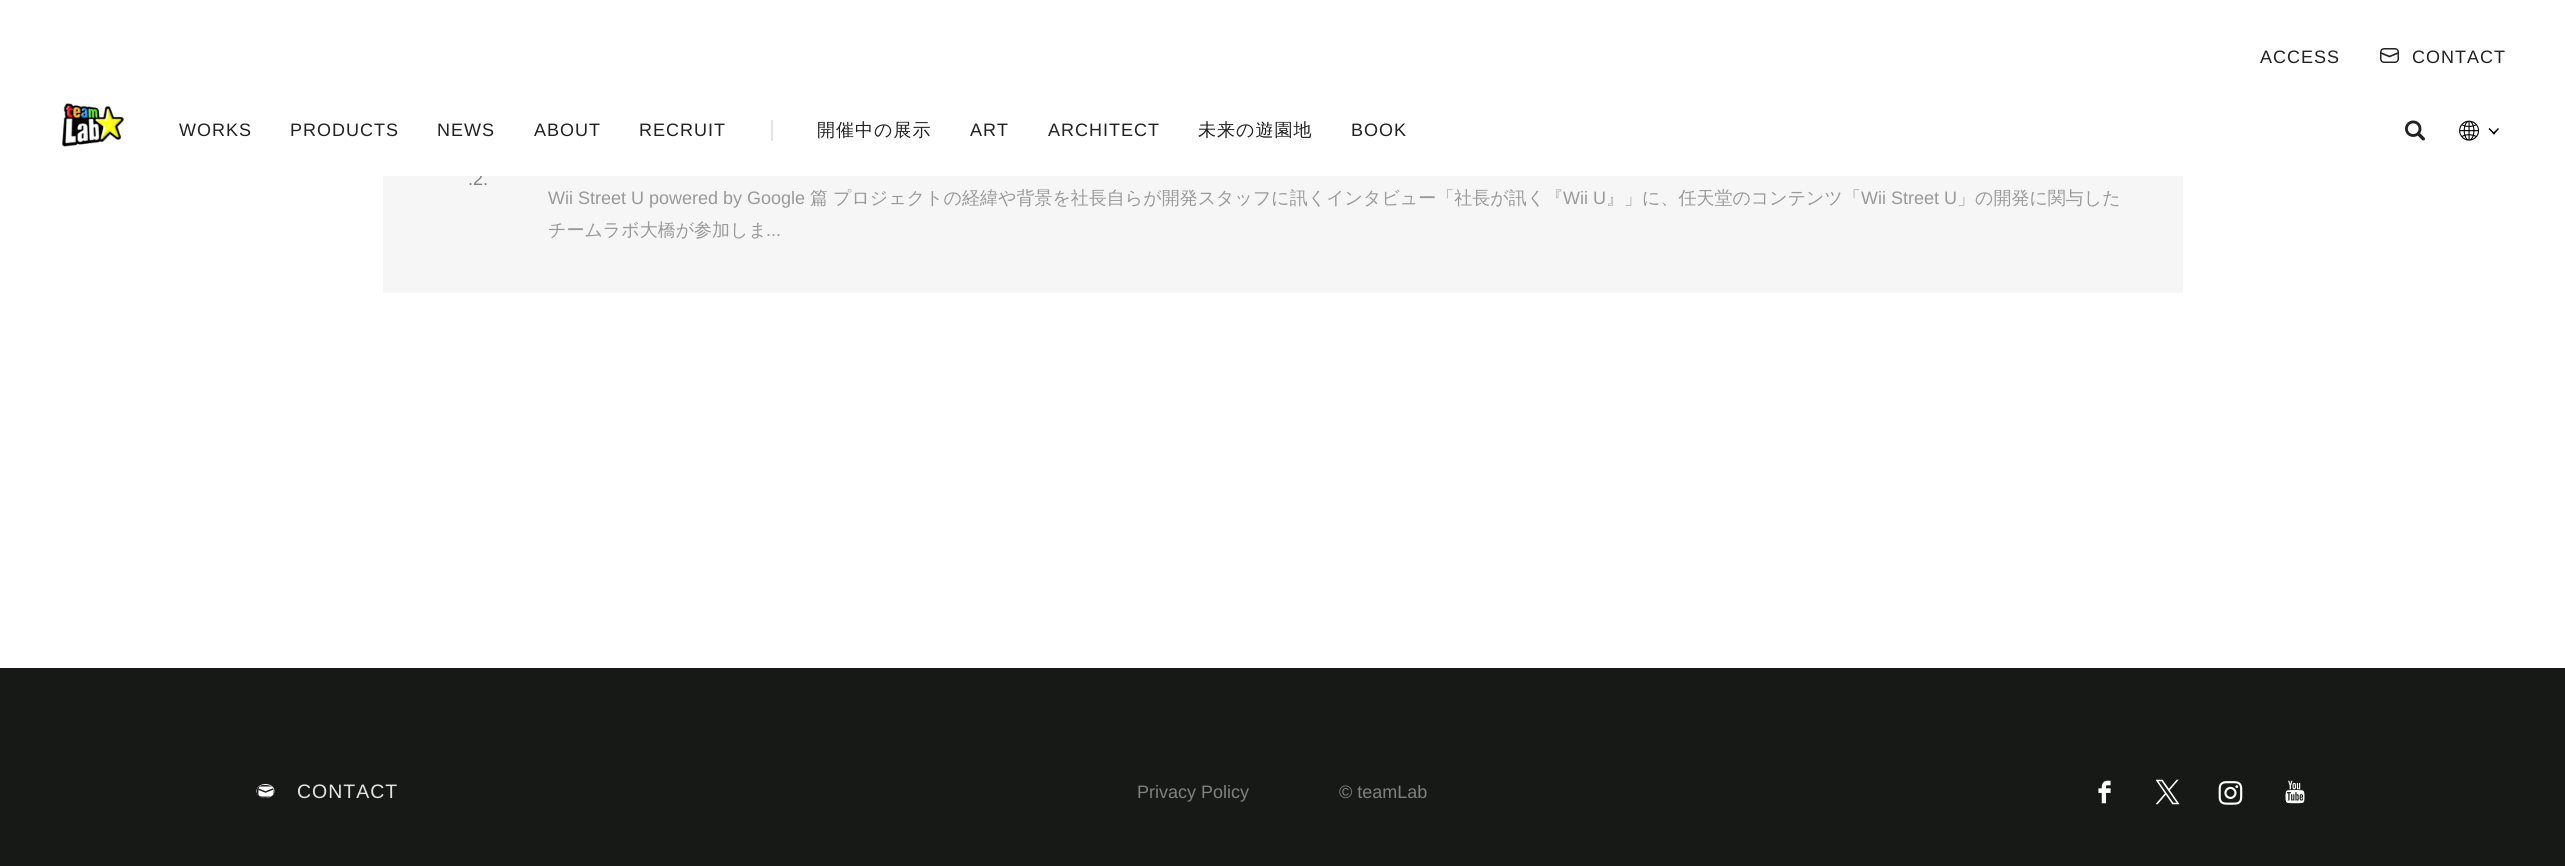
import math
import cairo


def write_spaced(ctx, x, y, s, letter, word):
	ctx.move_to(x, y)
	for ch in s:
		ctx.show_text(ch)
		ctx.rel_move_to(letter + word * (ch == ' '), 0)

def round_path(ctx, x, y, w, h, r):
	ctx.new_sub_path()
	for i, (u, v) in enumerate([(x + w - r, y + h - r), (x + r, y + h - r), (x + r, y + r), (x + w - r, y + r)]):
		ctx.arc(u, v, r, i * math.pi / 2, (i + 1) * math.pi / 2)
	ctx.close_path()

def paste(ctx, path, x, y, w, h):
	ctx.save()
	ctx.set_source_surface(cairo.ImageSurface.create_from_png(path), x, y)
	ctx.rectangle(x, y, w, h)
	ctx.fill()
	ctx.restore()

def draw(ctx):
	ctx.set_source_rgb(1, 1, 1)
	ctx.paint()
	ctx.set_source_rgb(0.961, 0.961, 0.961)
	ctx.rectangle(383, 176, 1800, 117)
	ctx.fill()
	ctx.select_font_face('Liberation Sans')
	ctx.set_font_size(18)
	ctx.set_source_rgb(0.502, 0.502, 0.502)
	ctx.move_to(468, 185)
	ctx.show_text('.2.')
	ctx.set_source_rgb(1, 1, 1)
	ctx.rectangle(473, 172, 9, 4)
	ctx.fill()
	ctx.set_source_rgb(0.129, 0.129, 0.129)
	write_spaced(ctx, 2260, 63, 'ACCESS', 1, 0)
	round_path(ctx, 2380.75, 48.75, 17.5, 13.5, 3.25)
	ctx.set_source_rgb(0.141, 0.141, 0.141)
	ctx.set_line_width(1.5)
	ctx.stroke()
	ctx.set_source_rgb(0.129, 0.129, 0.129)
	write_spaced(ctx, 2412, 63, 'CONTACT', 1, 0)
	ctx.new_path()
	ctx.move_to(2381, 53)
	ctx.line_to(2389.5, 56.5)
	ctx.line_to(2398, 53)
	ctx.set_source_rgb(0.141, 0.141, 0.141)
	ctx.set_line_width(1.7)
	ctx.stroke()
	paste(ctx, 'media/1.png', 62, 103, 62, 44)
	ctx.set_source_rgb(0.129, 0.129, 0.129)
	for x, y, s in [
		(179, 136, 'WORKS'),
		(290, 136, 'PRODUCTS'),
		(437, 136, 'NEWS'),
		(534, 136, 'ABOUT'),
		(639, 136, 'RECRUIT'),
	]:
		write_spaced(ctx, x, y, s, 1, 0)
	ctx.set_source_rgb(0.898, 0.898, 0.898)
	ctx.rectangle(771, 120, 2, 21)
	ctx.fill()
	ctx.select_font_face('WenQuanYi Zen Hei Medium')
	ctx.set_source_rgb(0.129, 0.129, 0.129)
	write_spaced(ctx, 817, 136, '開催中の展示', 1, 0)
	ctx.select_font_face('Liberation Sans')
	write_spaced(ctx, 970, 136, 'ART', 1, 0)
	write_spaced(ctx, 1048, 136, 'ARCHITECT', 1, 0)
	ctx.select_font_face('WenQuanYi Zen Hei Medium')
	write_spaced(ctx, 1198, 136, '未来の遊園地', 1, 0)
	ctx.select_font_face('Liberation Sans')
	write_spaced(ctx, 1351, 136, 'BOOK', 1, 0)
	paste(ctx, 'media/2.png', 2405, 120, 20, 21)
	paste(ctx, 'media/3.png', 2459, 120, 21, 21)
	ctx.set_source_rgb(0, 0, 0)
	ctx.new_path()
	ctx.move_to(2498, 128)
	ctx.line_to(2499, 129)
	ctx.line_to(2494, 134.5)
	ctx.line_to(2492.5, 133.5)
	ctx.close_path()
	ctx.fill()
	ctx.new_path()
	ctx.move_to(2489.5, 128)
	ctx.line_to(2495, 133.5)
	ctx.line_to(2494, 134.5)
	ctx.line_to(2488.5, 129)
	ctx.close_path()
	ctx.fill()
	ctx.set_source_rgb(0.6, 0.6, 0.6)
	ctx.move_to(548, 204)
	ctx.show_text('Wii Street U powered by Google')
	ctx.select_font_face('WenQuanYi Zen Hei Medium')
	ctx.move_to(810, 204)
	ctx.show_text('篇')
	ctx.move_to(833, 204)
	ctx.show_text('プロジェクトの経緯や背景を社長自らが開発スタッフに訊くインタビュー「社長が訊く『')
	ctx.select_font_face('Liberation Sans')
	ctx.move_to(1563, 204)
	ctx.show_text('Wii U')
	ctx.select_font_face('WenQuanYi Zen Hei Medium')
	ctx.move_to(1606, 204)
	ctx.show_text('』」に、任天堂のコンテンツ「')
	ctx.select_font_face('Liberation Sans')
	ctx.move_to(1861, 204)
	ctx.show_text('Wii Street U')
	ctx.select_font_face('WenQuanYi Zen Hei Medium')
	ctx.move_to(1957, 204)
	ctx.show_text('」の開発に関与した')
	ctx.move_to(548, 236)
	ctx.show_text('チームラボ大橋が参加しま')
	ctx.select_font_face('Liberation Sans')
	ctx.move_to(766, 236)
	ctx.show_text('...')
	ctx.set_source_rgb(0.09, 0.098, 0.09)
	ctx.rectangle(0, 668, 2565, 198)
	ctx.fill()
	ctx.set_source_rgb(1, 1, 1)
	ctx.new_path()
	ctx.move_to(265.5, 784)
	ctx.curve_to(270.5, 784, 274.5, 787, 274.5, 791)
	ctx.curve_to(274.5, 795, 270.5, 798, 265.5, 798)
	ctx.curve_to(260.5, 798, 256.5, 795, 256.5, 791)
	ctx.curve_to(256.5, 787, 260.5, 784, 265.5, 784)
	ctx.close_path()
	ctx.fill()
	ctx.set_font_size(19.5)
	ctx.set_source_rgb(0.898, 0.898, 0.898)
	write_spaced(ctx, 297, 798, 'CONTACT', 1, 0)
	ctx.set_source_rgb(0.141, 0.141, 0.141)
	ctx.set_fill_rule(cairo.FILL_RULE_EVEN_ODD)
	ctx.new_path()
	ctx.move_to(261, 786.5)
	ctx.curve_to(259, 786.5, 258.5, 788, 258.5, 790)
	ctx.curve_to(258.5, 794, 257.5, 796.5, 262.5, 796.5)
	ctx.line_to(271, 796.5)
	ctx.curve_to(267, 799, 258.5, 798.5, 257, 793.5)
	ctx.line_to(257, 789)
	ctx.curve_to(257.5, 787, 260.5, 785.5, 262, 785)
	ctx.line_to(264.5, 785)
	ctx.curve_to(267.5, 785, 270, 785, 272.5, 787)
	ctx.line_to(271, 786.5)
	ctx.close_path()
	ctx.move_to(273.5, 794.5)
	ctx.curve_to(275, 792.5, 274.5, 789.5, 273, 787.5)
	ctx.curve_to(274, 789, 273.5, 793, 273.5, 794.5)
	ctx.close_path()
	ctx.fill()
	ctx.new_path()
	ctx.move_to(258, 789)
	ctx.line_to(265.5, 792)
	ctx.line_to(273, 789)
	ctx.set_line_width(1.5)
	ctx.stroke()
	ctx.set_font_size(18)
	ctx.set_source_rgb(0.502, 0.502, 0.502)
	ctx.move_to(1137, 798)
	ctx.show_text('Privacy Policy')
	ctx.move_to(1339, 798)
	ctx.show_text('© teamLab')
	paste(ctx, 'media/4.png', 2098, 780, 13, 24)
	paste(ctx, 'media/5.png', 2156, 779, 24, 26)
	paste(ctx, 'media/6.png', 2218, 781, 25, 24)
	paste(ctx, 'media/7.png', 2285, 780, 20, 24)


surface = cairo.ImageSurface(cairo.FORMAT_RGB24, 2565, 866)
ctx = cairo.Context(surface)
options = cairo.FontOptions()
options.set_hint_metrics(cairo.HINT_METRICS_OFF)
options.set_hint_style(cairo.HINT_STYLE_NONE)
ctx.set_font_options(options)
ctx.set_miter_limit(4)
draw(ctx)
surface.write_to_png('image.png')
